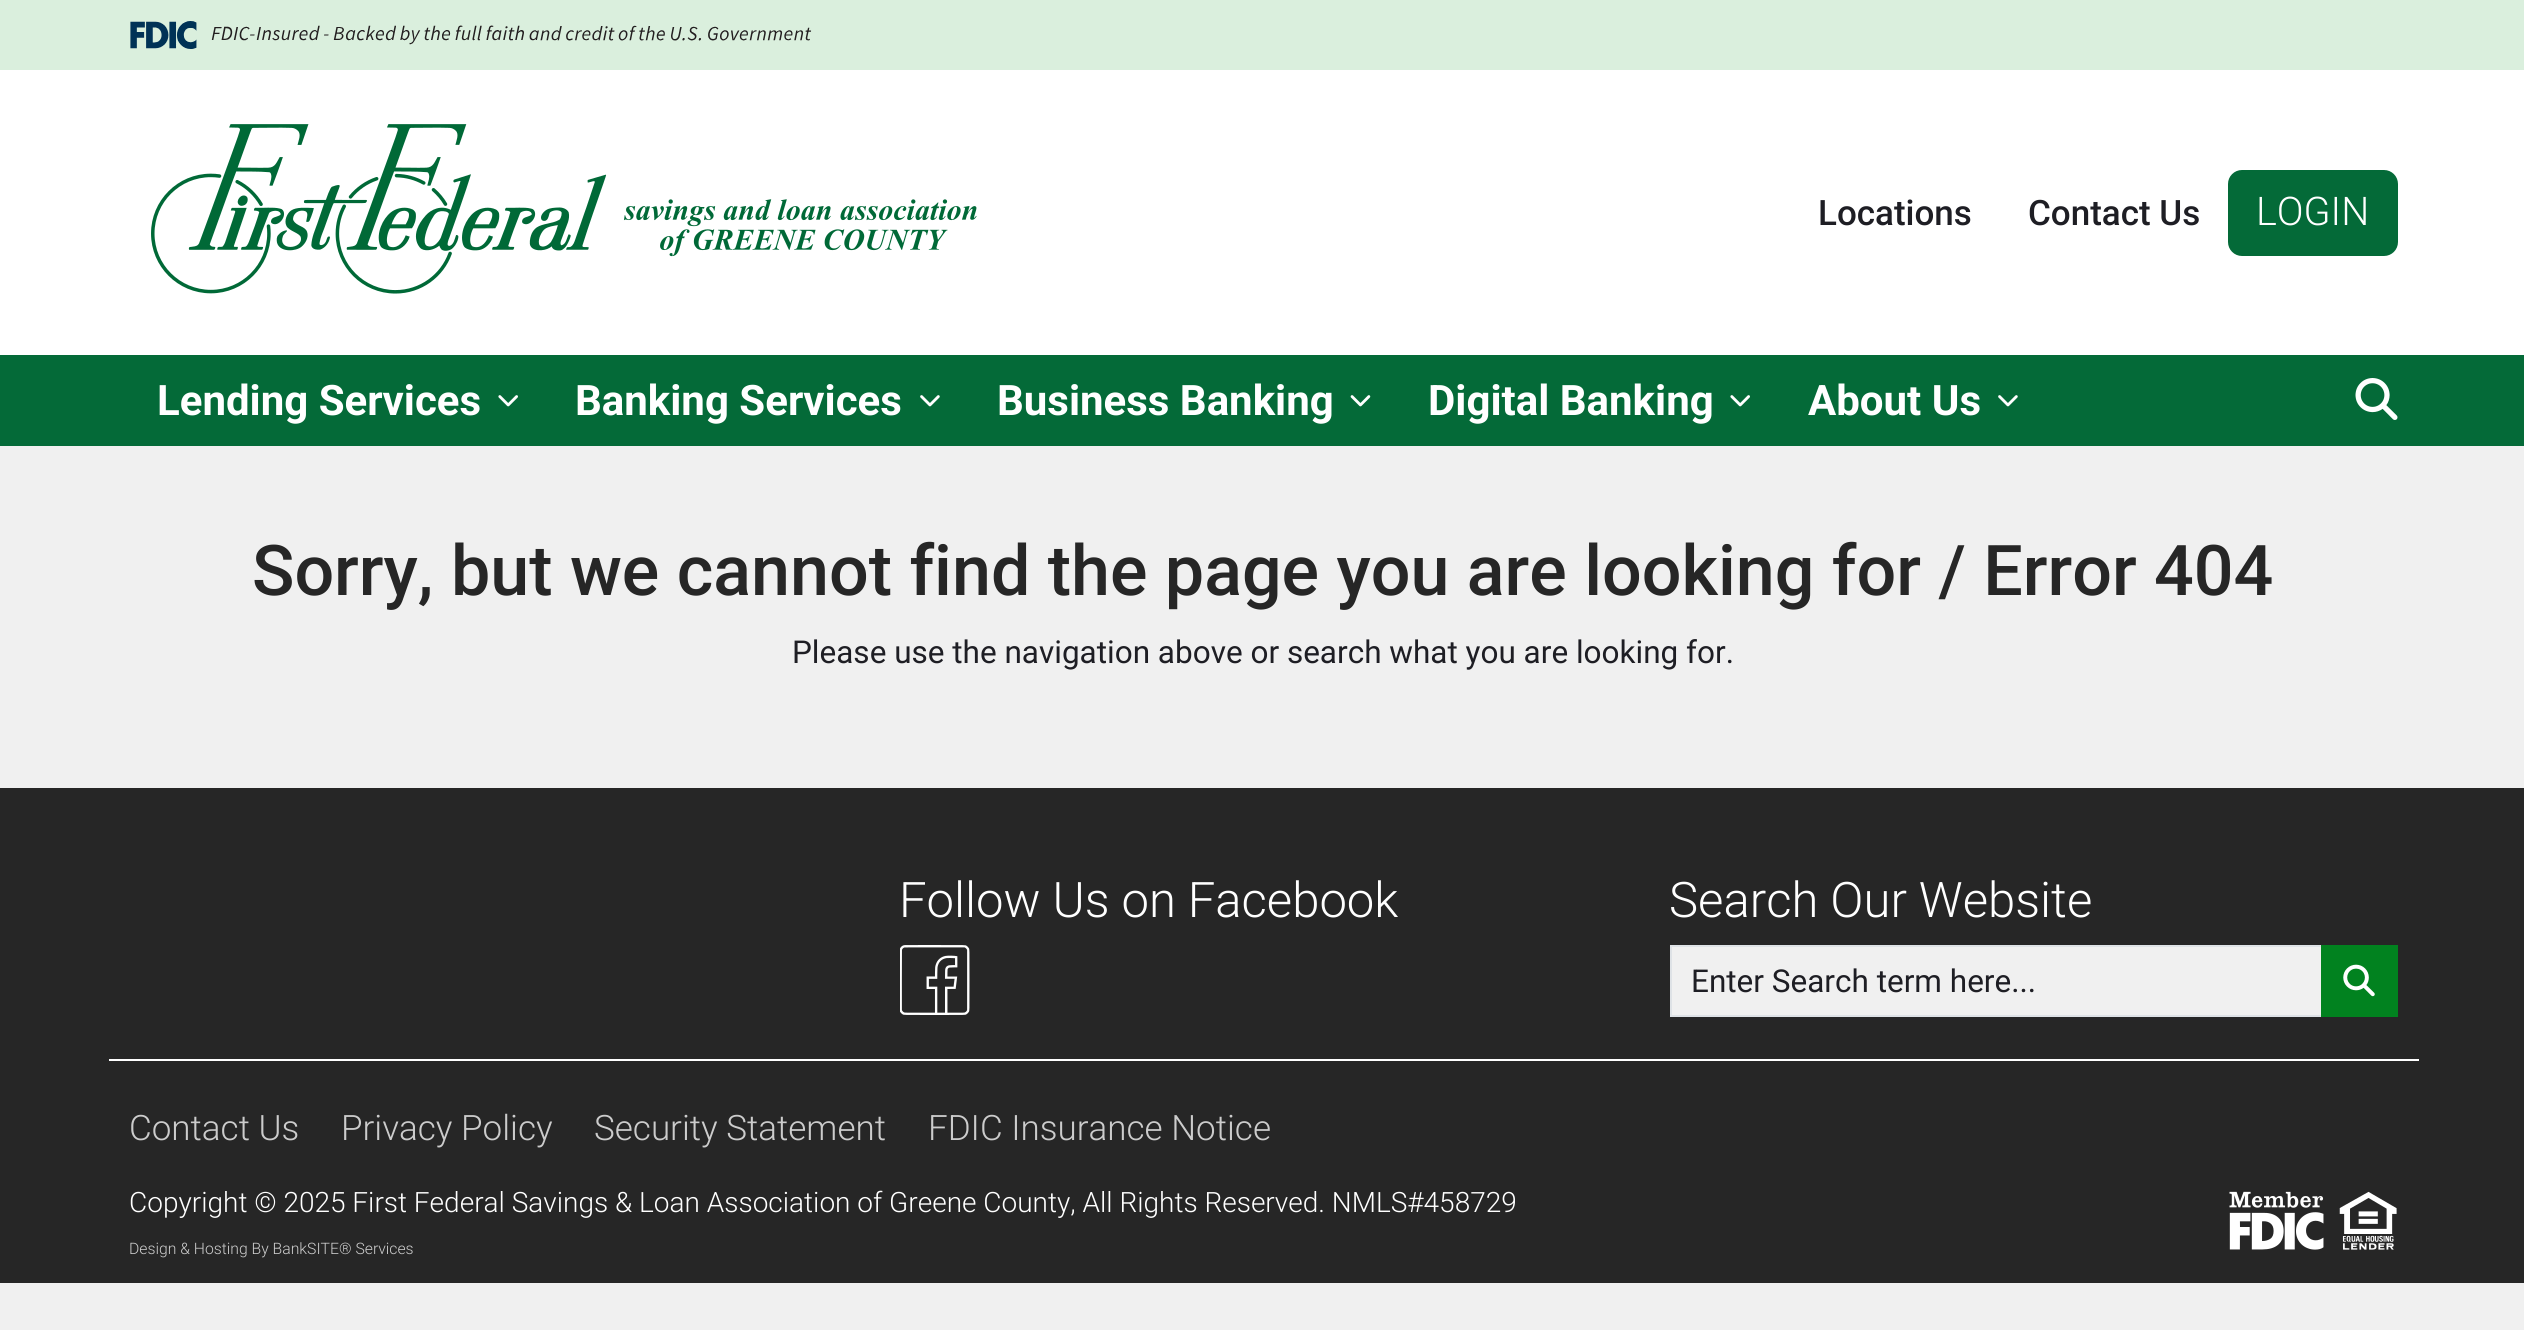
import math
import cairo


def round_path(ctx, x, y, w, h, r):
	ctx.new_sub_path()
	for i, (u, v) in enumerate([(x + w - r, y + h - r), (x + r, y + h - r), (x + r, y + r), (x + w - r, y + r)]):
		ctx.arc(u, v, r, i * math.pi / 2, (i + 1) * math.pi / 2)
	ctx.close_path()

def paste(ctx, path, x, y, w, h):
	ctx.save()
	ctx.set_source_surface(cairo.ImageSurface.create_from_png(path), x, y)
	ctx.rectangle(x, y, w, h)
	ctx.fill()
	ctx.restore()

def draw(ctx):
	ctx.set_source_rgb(0.941, 0.941, 0.941)
	ctx.paint()
	ctx.set_source_rgb(0.855, 0.937, 0.867)
	ctx.rectangle(0, 0, 2524, 70)
	ctx.fill()
	paste(ctx, 'media/1.png', 130, 21, 682, 28)
	ctx.set_source_rgb(1, 1, 1)
	ctx.rectangle(0, 70, 2524, 285)
	ctx.fill()
	paste(ctx, 'media/2.png', 151, 124, 826, 170)
	ctx.select_font_face('Roboto Medium')
	ctx.set_font_size(35)
	ctx.set_source_rgb(0.118, 0.118, 0.141)
	ctx.move_to(1818, 225)
	ctx.show_text('Locations')
	ctx.move_to(2028, 225)
	ctx.show_text('Contact Us')
	ctx.set_source_rgb(0.016, 0.416, 0.22)
	round_path(ctx, 2228, 170, 170, 86, 14)
	ctx.fill()
	ctx.select_font_face('Roboto Light')
	ctx.set_font_size(39.5)
	ctx.set_source_rgb(1, 1, 1)
	ctx.move_to(2256, 225)
	ctx.show_text('LOGIN')
	ctx.set_source_rgb(0.016, 0.416, 0.22)
	ctx.rectangle(0, 355, 2524, 91)
	ctx.fill()
	ctx.select_font_face('Roboto', cairo.FONT_SLANT_NORMAL, cairo.FONT_WEIGHT_BOLD)
	ctx.set_font_size(42)
	ctx.set_source_rgb(1, 1, 1)
	ctx.move_to(157, 415)
	ctx.show_text('Lending Services')
	paste(ctx, 'media/3.png', 498, 395, 20, 12)
	ctx.move_to(575, 415)
	ctx.show_text('Banking Services')
	paste(ctx, 'media/4.png', 920, 395, 20, 12)
	ctx.move_to(997, 415)
	ctx.show_text('Business Banking')
	paste(ctx, 'media/5.png', 1350, 395, 21, 12)
	ctx.move_to(1428, 415)
	ctx.show_text('Digital Banking')
	paste(ctx, 'media/3.png', 1730, 395, 20, 12)
	ctx.move_to(1808, 415)
	ctx.show_text('About Us')
	paste(ctx, 'media/4.png', 1998, 395, 20, 12)
	paste(ctx, 'media/6.png', 2355, 378, 43, 42)
	ctx.select_font_face('Roboto Medium')
	ctx.set_font_size(70)
	ctx.set_source_rgb(0.149, 0.149, 0.149)
	ctx.move_to(252, 595)
	ctx.show_text('Sorry, but we cannot find the page you are looking for / Error 404')
	ctx.select_font_face('Roboto')
	ctx.set_font_size(31.5)
	ctx.set_source_rgb(0.118, 0.118, 0.141)
	ctx.move_to(792, 663)
	ctx.show_text('Please use the navigation above or search what you are looking for.')
	ctx.set_source_rgb(0.149, 0.149, 0.149)
	ctx.rectangle(0, 788, 2524, 495)
	ctx.fill()
	ctx.select_font_face('Roboto Light')
	ctx.set_font_size(49)
	ctx.set_source_rgb(1, 1, 1)
	ctx.move_to(899, 917)
	ctx.show_text('Follow Us on Facebook')
	paste(ctx, 'media/7.png', 900, 945, 70, 70)
	ctx.move_to(1669, 917)
	ctx.show_text('Search Our Website')
	ctx.set_source_rgb(0.941, 0.941, 0.941)
	ctx.rectangle(1672, 947, 649, 68)
	ctx.fill()
	ctx.set_source_rgb(0.871, 0.886, 0.902)
	ctx.rectangle(1670, 945, 652, 2)
	ctx.rectangle(1670, 1015, 652, 2)
	ctx.rectangle(1670, 945, 2, 72)
	ctx.fill()
	ctx.select_font_face('Roboto')
	ctx.set_font_size(31.5)
	ctx.set_source_rgb(0.118, 0.118, 0.141)
	ctx.move_to(1691, 992)
	ctx.show_text('Enter Search term here...')
	ctx.set_source_rgb(0.004, 0.51, 0.122)
	ctx.rectangle(2321, 945, 77, 72)
	ctx.fill()
	paste(ctx, 'media/8.png', 2343, 964, 32, 33)
	ctx.set_source_rgb(1, 1, 1)
	ctx.rectangle(109, 1059, 2310, 2)
	ctx.fill()
	ctx.select_font_face('Roboto Light')
	ctx.set_font_size(35)
	ctx.set_source_rgb(0.8, 0.8, 0.8)
	for x, y, s in [
		(129, 1140, 'Contact Us'),
		(341, 1140, 'Privacy Policy'),
		(594, 1140, 'Security Statement'),
		(928, 1140, 'FDIC Insurance Notice'),
	]:
		ctx.move_to(x, y)
		ctx.show_text(s)
	ctx.set_font_size(28)
	ctx.set_source_rgb(1, 1, 1)
	ctx.move_to(129, 1212)
	ctx.show_text('Copyright © 2025 First Federal Savings & Loan Association of Greene County, All Rights Reserved. NMLS#458729')
	ctx.set_font_size(15.75)
	ctx.set_source_rgb(0.8, 0.8, 0.8)
	ctx.move_to(129, 1254)
	ctx.show_text('Design & Hosting By BankSITE® Services')
	paste(ctx, 'media/9.png', 2229, 1191, 95, 59)
	paste(ctx, 'media/10.png', 2339, 1191, 58, 59)


surface = cairo.ImageSurface(cairo.FORMAT_RGB24, 2524, 1330)
ctx = cairo.Context(surface)
options = cairo.FontOptions()
options.set_hint_metrics(cairo.HINT_METRICS_OFF)
options.set_hint_style(cairo.HINT_STYLE_NONE)
ctx.set_font_options(options)
ctx.set_miter_limit(4)
draw(ctx)
surface.write_to_png('image.png')
